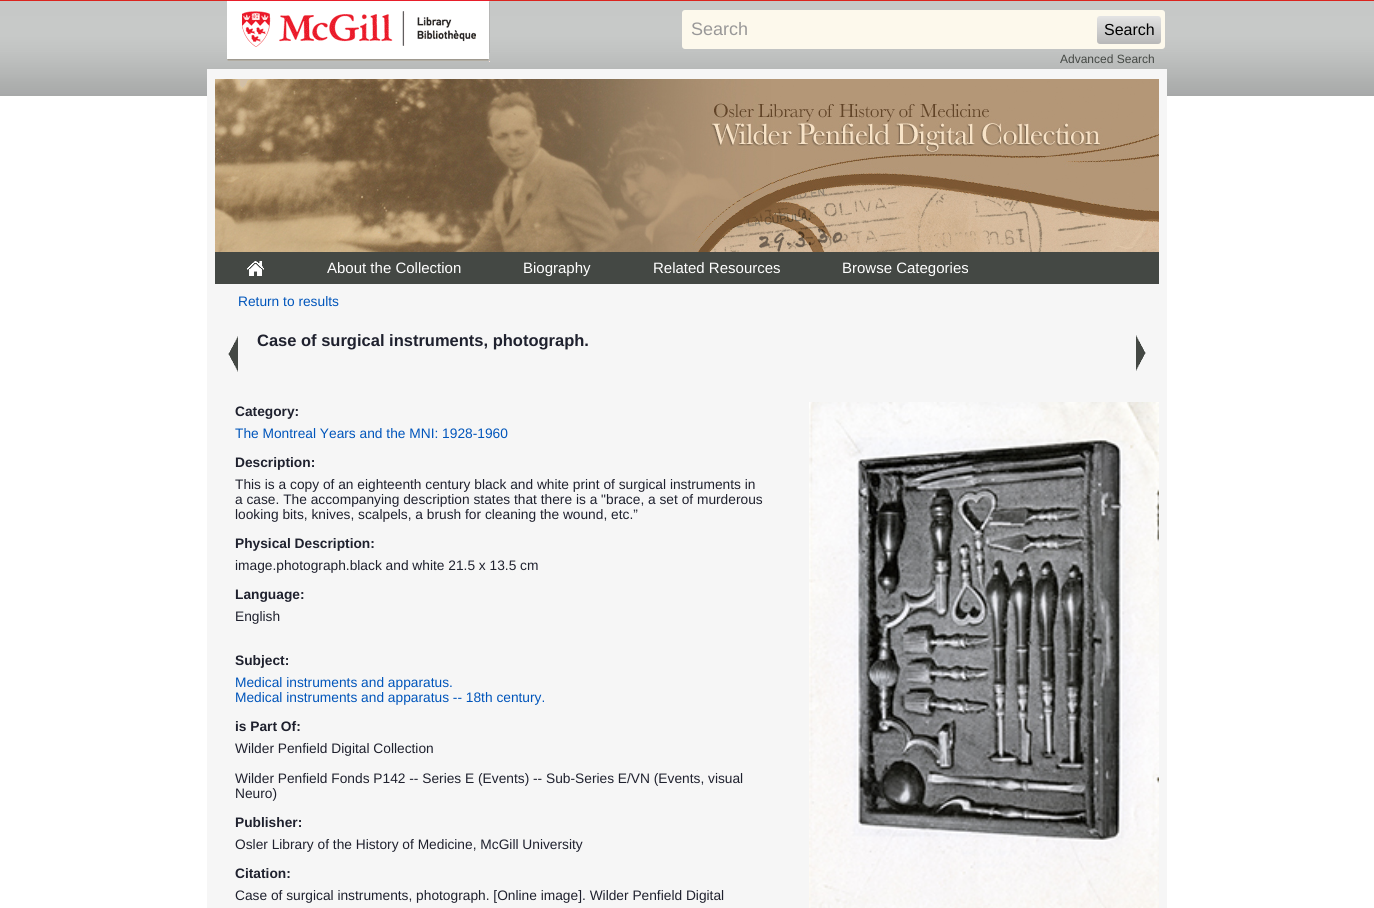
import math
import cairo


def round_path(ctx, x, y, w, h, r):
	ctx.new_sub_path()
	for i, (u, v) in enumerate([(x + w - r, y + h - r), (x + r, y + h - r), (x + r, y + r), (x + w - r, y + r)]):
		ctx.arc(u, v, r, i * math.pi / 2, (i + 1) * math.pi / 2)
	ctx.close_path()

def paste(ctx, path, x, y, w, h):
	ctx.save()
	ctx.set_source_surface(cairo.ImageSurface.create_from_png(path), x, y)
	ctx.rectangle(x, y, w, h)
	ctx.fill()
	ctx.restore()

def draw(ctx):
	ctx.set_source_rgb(1, 1, 1)
	ctx.paint()
	paste(ctx, 'media/1.png', 0, 0, 1374, 96)
	paste(ctx, 'media/2.png', 227, 0, 263, 62)
	ctx.set_source_rgb(0.992, 0.973, 0.922)
	round_path(ctx, 682, 10, 483, 39, 3)
	ctx.fill()
	ctx.select_font_face('Liberation Sans')
	ctx.set_font_size(18)
	ctx.set_source_rgb(0.6, 0.596, 0.596)
	ctx.move_to(691, 35)
	ctx.show_text('Search')
	gradient = cairo.LinearGradient(1097, 16, 1097, 44)
	gradient.add_color_stop_rgba(0, 0.894, 0.894, 0.894, 1)
	gradient.add_color_stop_rgba(1, 0.722, 0.722, 0.722, 1)
	ctx.set_source(gradient)
	round_path(ctx, 1097, 16, 64, 28, 3)
	ctx.fill()
	ctx.set_font_size(16)
	ctx.set_source_rgb(0, 0, 0)
	ctx.move_to(1104, 35)
	ctx.show_text('Search')
	ctx.set_font_size(12)
	ctx.set_source_rgb(0.267, 0.282, 0.267)
	ctx.move_to(1060, 63)
	ctx.show_text('Advanced Search')
	ctx.set_source_rgb(0.961, 0.961, 0.961)
	ctx.rectangle(207, 69, 960, 839)
	ctx.fill()
	paste(ctx, 'media/3.png', 215, 79, 944, 173)
	ctx.set_source_rgb(0.267, 0.282, 0.267)
	ctx.rectangle(215, 252, 944, 32)
	ctx.fill()
	paste(ctx, 'media/4.png', 247, 261, 17, 15)
	ctx.set_font_size(15)
	ctx.set_source_rgb(1, 1, 1)
	for x, y, s in [
		(327, 273, 'About the Collection'),
		(523, 273, 'Biography'),
		(653, 273, 'Related Resources'),
		(842, 273, 'Browse Categories'),
	]:
		ctx.move_to(x, y)
		ctx.show_text(s)
	ctx.set_font_size(13.75)
	ctx.set_source_rgb(0, 0.333, 0.733)
	ctx.move_to(238, 306)
	ctx.show_text('Return to results')
	paste(ctx, 'media/5.png', 228, 336, 10, 36)
	ctx.select_font_face('Liberation Sans', cairo.FONT_SLANT_NORMAL, cairo.FONT_WEIGHT_BOLD)
	ctx.set_font_size(16.5)
	ctx.set_source_rgb(0.122, 0.129, 0.18)
	ctx.move_to(257, 346)
	ctx.show_text('Case of surgical instruments, photograph.')
	paste(ctx, 'media/6.png', 1136, 335, 10, 36)
	ctx.set_font_size(13.75)
	ctx.move_to(235, 416)
	ctx.show_text('Category:')
	ctx.select_font_face('Liberation Sans')
	ctx.set_source_rgb(0, 0.333, 0.733)
	ctx.move_to(235, 438)
	ctx.show_text('The Montreal Years and the MNI: 1928-1960')
	ctx.select_font_face('Liberation Sans', cairo.FONT_SLANT_NORMAL, cairo.FONT_WEIGHT_BOLD)
	ctx.set_source_rgb(0.122, 0.129, 0.18)
	ctx.move_to(235, 467)
	ctx.show_text('Description:')
	ctx.select_font_face('Liberation Sans')
	for x, y, s in [
		(235, 489, 'This is a copy of an eighteenth century black and white print of surgical instruments in'),
		(235, 504, 'a case. The accompanying description states that there is a "brace, a set of murderous'),
		(235, 519, 'looking bits, knives, scalpels, a brush for cleaning the wound, etc.”'),
	]:
		ctx.move_to(x, y)
		ctx.show_text(s)
	ctx.select_font_face('Liberation Sans', cairo.FONT_SLANT_NORMAL, cairo.FONT_WEIGHT_BOLD)
	ctx.move_to(235, 548)
	ctx.show_text('Physical Description:')
	ctx.select_font_face('Liberation Sans')
	ctx.move_to(235, 570)
	ctx.show_text('image.photograph.black and white 21.5 x 13.5 cm')
	ctx.select_font_face('Liberation Sans', cairo.FONT_SLANT_NORMAL, cairo.FONT_WEIGHT_BOLD)
	ctx.move_to(235, 599)
	ctx.show_text('Language:')
	ctx.select_font_face('Liberation Sans')
	ctx.move_to(235, 621)
	ctx.show_text('English')
	ctx.select_font_face('Liberation Sans', cairo.FONT_SLANT_NORMAL, cairo.FONT_WEIGHT_BOLD)
	ctx.move_to(235, 665)
	ctx.show_text('Subject:')
	ctx.select_font_face('Liberation Sans')
	ctx.set_source_rgb(0, 0.333, 0.733)
	ctx.move_to(235, 687)
	ctx.show_text('Medical instruments and apparatus.')
	ctx.move_to(235, 702)
	ctx.show_text('Medical instruments and apparatus -- 18th century.')
	ctx.select_font_face('Liberation Sans', cairo.FONT_SLANT_NORMAL, cairo.FONT_WEIGHT_BOLD)
	ctx.set_source_rgb(0.122, 0.129, 0.18)
	ctx.move_to(235, 731)
	ctx.show_text('is Part Of:')
	ctx.select_font_face('Liberation Sans')
	for x, y, s in [
		(235, 753, 'Wilder Penfield Digital Collection'),
		(235, 783, 'Wilder Penfield Fonds P142 -- Series E (Events) -- Sub-Series E/VN (Events, visual'),
		(235, 798, 'Neuro)'),
	]:
		ctx.move_to(x, y)
		ctx.show_text(s)
	ctx.select_font_face('Liberation Sans', cairo.FONT_SLANT_NORMAL, cairo.FONT_WEIGHT_BOLD)
	ctx.move_to(235, 827)
	ctx.show_text('Publisher:')
	ctx.select_font_face('Liberation Sans')
	ctx.move_to(235, 849)
	ctx.show_text('Osler Library of the History of Medicine, McGill University')
	ctx.select_font_face('Liberation Sans', cairo.FONT_SLANT_NORMAL, cairo.FONT_WEIGHT_BOLD)
	ctx.move_to(235, 878)
	ctx.show_text('Citation:')
	ctx.select_font_face('Liberation Sans')
	ctx.move_to(235, 900)
	ctx.show_text('Case of surgical instruments, photograph. [Online image]. Wilder Penfield Digital')
	paste(ctx, 'media/7.png', 809, 402, 350, 506)


surface = cairo.ImageSurface(cairo.FORMAT_RGB24, 1374, 908)
ctx = cairo.Context(surface)
options = cairo.FontOptions()
options.set_hint_metrics(cairo.HINT_METRICS_OFF)
options.set_hint_style(cairo.HINT_STYLE_NONE)
ctx.set_font_options(options)
ctx.set_miter_limit(4)
draw(ctx)
surface.write_to_png('image.png')
